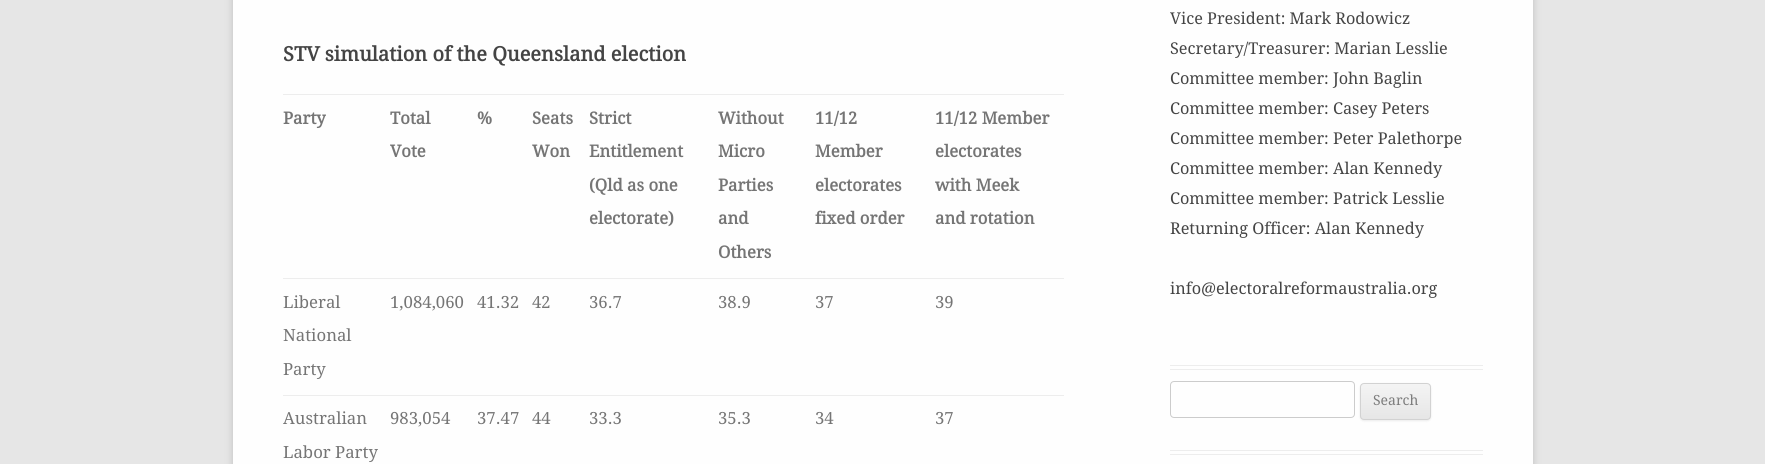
import math
import cairo


def round_path(ctx, x, y, w, h, r):
	ctx.new_sub_path()
	for i, (u, v) in enumerate([(x + w - r, y + h - r), (x + r, y + h - r), (x + r, y + r), (x + w - r, y + r)]):
		ctx.arc(u, v, r, i * math.pi / 2, (i + 1) * math.pi / 2)
	ctx.close_path()

def blur_box(ctx, x, y, w, h, r, blur, alpha):
	ctx.push_group_with_content(cairo.CONTENT_ALPHA)
	ctx.set_operator(cairo.OPERATOR_SOURCE)
	for i in range(15, -16, -2):
		e = blur * i / 6
		if min(w, h) + 2 * e > 0:
			ctx.set_source_rgba(0, 0, 0, alpha * math.erfc((i - 1) / 8.5) / 2)
			round_path(ctx, x - e, y - e, w + 2 * e, h + 2 * e, max(0, min(r + e + blur * .6, min(w, h) / 2 + e)))
			ctx.fill()
	ctx.mask(ctx.pop_group())

def draw(ctx):
	ctx.set_source_rgb(0.902, 0.902, 0.902)
	ctx.paint()
	ctx.set_source_rgb(0.392, 0.392, 0.392)
	blur_box(ctx, 233, -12, 1300, 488, 0, 4, 0.3)
	ctx.set_source_rgb(0.996, 0.996, 0.996)
	ctx.rectangle(233, 0, 1300, 464)
	ctx.fill()
	ctx.select_font_face('Droid Serif', cairo.FONT_SLANT_NORMAL, cairo.FONT_WEIGHT_BOLD)
	ctx.set_font_size(20)
	ctx.set_source_rgb(0.267, 0.267, 0.267)
	ctx.move_to(283, 61)
	ctx.show_text('STV simulation of the Queensland election')
	ctx.set_font_size(16.75)
	ctx.set_source_rgb(0.459, 0.459, 0.459)
	for x, y, s in [
		(283, 124, 'Party'),
		(390, 124, 'Total'),
		(390, 157, 'Vote'),
		(477, 124, '%'),
		(532, 124, 'Seats'),
		(532, 157, 'Won'),
		(589, 124, 'Strict'),
		(589, 157, 'Entitlement'),
		(589, 191, '(Qld as one'),
		(589, 224, 'electorate)'),
		(718, 124, 'Without'),
		(718, 157, 'Micro'),
		(718, 191, 'Parties'),
		(718, 224, 'and'),
		(718, 258, 'Others'),
		(815, 124, '11/12'),
		(815, 157, 'Member'),
		(815, 191, 'electorates'),
		(815, 224, 'fixed order'),
	]:
		ctx.move_to(x, y)
		ctx.show_text(s)
	ctx.set_source_rgb(0.929, 0.929, 0.929)
	ctx.rectangle(283, 94, 781, 1)
	ctx.fill()
	ctx.set_source_rgb(0.459, 0.459, 0.459)
	for x, y, s in [
		(935, 124, '11/12 Member'),
		(935, 157, 'electorates'),
		(935, 191, 'with Meek'),
		(935, 224, 'and rotation'),
	]:
		ctx.move_to(x, y)
		ctx.show_text(s)
	ctx.select_font_face('Droid Serif')
	for x, y, s in [
		(283, 308, 'Liberal'),
		(283, 341, 'National'),
		(283, 375, 'Party'),
		(390, 308, '1,084,060'),
		(477, 308, '41.32'),
		(532, 308, '42'),
		(589, 308, '36.7'),
		(718, 308, '38.9'),
		(815, 308, '37'),
	]:
		ctx.move_to(x, y)
		ctx.show_text(s)
	ctx.set_source_rgb(0.929, 0.929, 0.929)
	ctx.rectangle(283, 278, 781, 1)
	ctx.fill()
	ctx.set_source_rgb(0.459, 0.459, 0.459)
	for x, y, s in [
		(935, 308, '39'),
		(283, 424, 'Australian'),
		(283, 458, 'Labor Party'),
		(390, 424, '983,054'),
		(477, 424, '37.47'),
		(532, 424, '44'),
		(589, 424, '33.3'),
		(718, 424, '35.3'),
		(815, 424, '34'),
	]:
		ctx.move_to(x, y)
		ctx.show_text(s)
	ctx.set_source_rgb(0.929, 0.929, 0.929)
	ctx.rectangle(283, 395, 781, 1)
	ctx.fill()
	ctx.set_source_rgb(0.459, 0.459, 0.459)
	ctx.move_to(935, 424)
	ctx.show_text('37')
	ctx.set_source_rgb(0.929, 0.929, 0.929)
	ctx.rectangle(1170, 365, 313, 1)
	ctx.fill()
	ctx.rectangle(1170, 369, 313, 1)
	ctx.fill()
	ctx.set_font_size(16.25)
	ctx.set_source_rgb(0.267, 0.267, 0.267)
	for x, y, s in [
		(1170, 24, 'Vice President: Mark Rodowicz'),
		(1170, 54, 'Secretary/Treasurer: Marian Lesslie'),
		(1170, 84, 'Committee member: John Baglin'),
		(1170, 114, 'Committee member: Casey Peters'),
		(1170, 144, 'Committee member: Peter Palethorpe'),
		(1170, 174, 'Committee member: Alan Kennedy'),
		(1170, 204, 'Committee member: Patrick Lesslie'),
		(1170, 234, 'Returning Officer: Alan Kennedy'),
		(1170, 294, 'info@electoralreformaustralia.org'),
	]:
		ctx.move_to(x, y)
		ctx.show_text(s)
	ctx.set_source_rgb(0.929, 0.929, 0.929)
	ctx.rectangle(1170, 450, 313, 1)
	ctx.fill()
	ctx.rectangle(1170, 454, 313, 1)
	ctx.fill()
	round_path(ctx, 1170.5, 381.5, 184, 36, 3.5)
	ctx.set_source_rgb(0.8, 0.8, 0.8)
	ctx.set_line_width(1)
	ctx.stroke()
	ctx.set_source_rgb(0.251, 0.251, 0.251)
	blur_box(ctx, 1360, 384, 71, 37, 4, 1, 0.1)
	ctx.save()
	round_path(ctx, 1360, 383, 71, 37, 4)
	ctx.clip()
	gradient = cairo.LinearGradient(1396, 384, 1396, 419)
	gradient.add_color_stop_rgba(0, 0.957, 0.957, 0.957, 1)
	gradient.add_color_stop_rgba(1, 0.902, 0.902, 0.902, 1)
	ctx.set_source(gradient)
	ctx.rectangle(1360, 384, 71, 35)
	ctx.fill()
	ctx.restore()
	round_path(ctx, 1360.5, 383.5, 70, 36, 3.5)
	ctx.set_source_rgb(0.824, 0.824, 0.824)
	ctx.stroke()
	ctx.set_font_size(14)
	ctx.set_source_rgb(0.486, 0.486, 0.486)
	ctx.move_to(1373, 405)
	ctx.show_text('Search')


surface = cairo.ImageSurface(cairo.FORMAT_RGB24, 1765, 464)
ctx = cairo.Context(surface)
options = cairo.FontOptions()
options.set_hint_metrics(cairo.HINT_METRICS_OFF)
options.set_hint_style(cairo.HINT_STYLE_NONE)
ctx.set_font_options(options)
ctx.set_miter_limit(4)
draw(ctx)
surface.write_to_png('image.png')
